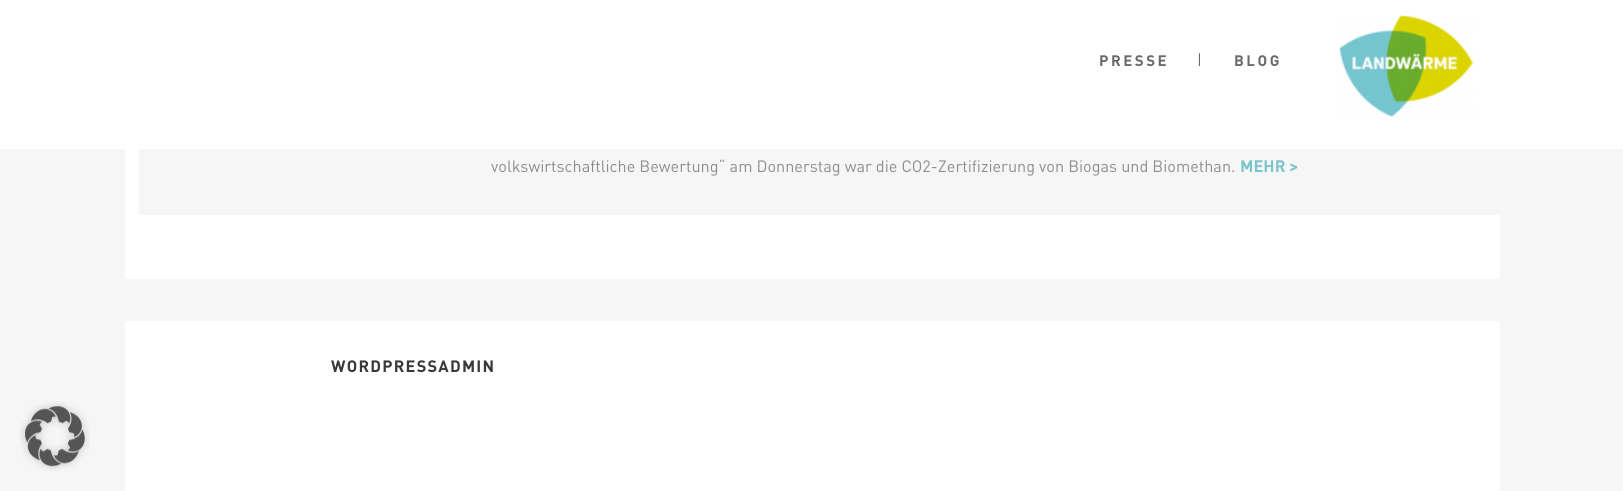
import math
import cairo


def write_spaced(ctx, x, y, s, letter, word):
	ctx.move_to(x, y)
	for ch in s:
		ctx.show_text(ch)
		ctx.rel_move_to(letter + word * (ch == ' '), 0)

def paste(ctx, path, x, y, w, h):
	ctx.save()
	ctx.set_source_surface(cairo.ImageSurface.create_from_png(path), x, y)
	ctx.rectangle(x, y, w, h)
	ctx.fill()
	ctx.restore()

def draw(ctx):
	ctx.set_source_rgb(0.961, 0.961, 0.961)
	ctx.paint()
	ctx.set_source_rgb(1, 1, 1)
	ctx.rectangle(0, 0, 1623, 149)
	ctx.fill()
	ctx.select_font_face('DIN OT', cairo.FONT_SLANT_NORMAL, cairo.FONT_WEIGHT_BOLD)
	ctx.set_font_size(15)
	ctx.set_source_rgb(0.412, 0.412, 0.412)
	write_spaced(ctx, 1099, 66, 'PRESSE', 2.5, 0)
	ctx.select_font_face('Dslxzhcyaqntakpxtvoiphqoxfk')
	ctx.move_to(1197, 65)
	ctx.show_text('|')
	ctx.select_font_face('DIN OT', cairo.FONT_SLANT_NORMAL, cairo.FONT_WEIGHT_BOLD)
	write_spaced(ctx, 1234, 66, 'BLOG', 2.5, 0)
	paste(ctx, 'media/1.png', 1339, 15, 135, 103)
	ctx.set_source_rgb(1, 1, 1)
	ctx.rectangle(125, 149, 1375, 130)
	ctx.fill()
	ctx.set_source_rgb(0.961, 0.961, 0.961)
	ctx.rectangle(139, 149, 1361, 66)
	ctx.fill()
	ctx.select_font_face('Dslxzhcyaqntakpxtvoiphqoxfk')
	ctx.set_font_size(16.25)
	ctx.set_source_rgb(0.553, 0.553, 0.553)
	ctx.move_to(491, 172)
	ctx.show_text('volkswirtschaftliche Bewertung“ am Donnerstag war die CO2-Zertifizierung von Biogas und Biomethan.')
	ctx.select_font_face('DIN OT', cairo.FONT_SLANT_NORMAL, cairo.FONT_WEIGHT_BOLD)
	ctx.set_font_size(16.5)
	ctx.set_source_rgb(0.482, 0.773, 0.8)
	ctx.move_to(1240, 172)
	ctx.show_text('MEHR >')
	ctx.set_source_rgb(1, 1, 1)
	ctx.rectangle(125, 321, 1375, 170)
	ctx.fill()
	ctx.set_font_size(16.25)
	ctx.set_source_rgb(0.224, 0.224, 0.224)
	write_spaced(ctx, 331, 372, 'WORDPRESSADMIN', 1.25, 0)
	paste(ctx, 'media/2.png', 20, 401, 70, 70)


surface = cairo.ImageSurface(cairo.FORMAT_RGB24, 1623, 491)
ctx = cairo.Context(surface)
options = cairo.FontOptions()
options.set_hint_metrics(cairo.HINT_METRICS_OFF)
options.set_hint_style(cairo.HINT_STYLE_NONE)
ctx.set_font_options(options)
ctx.set_miter_limit(4)
draw(ctx)
surface.write_to_png('image.png')
